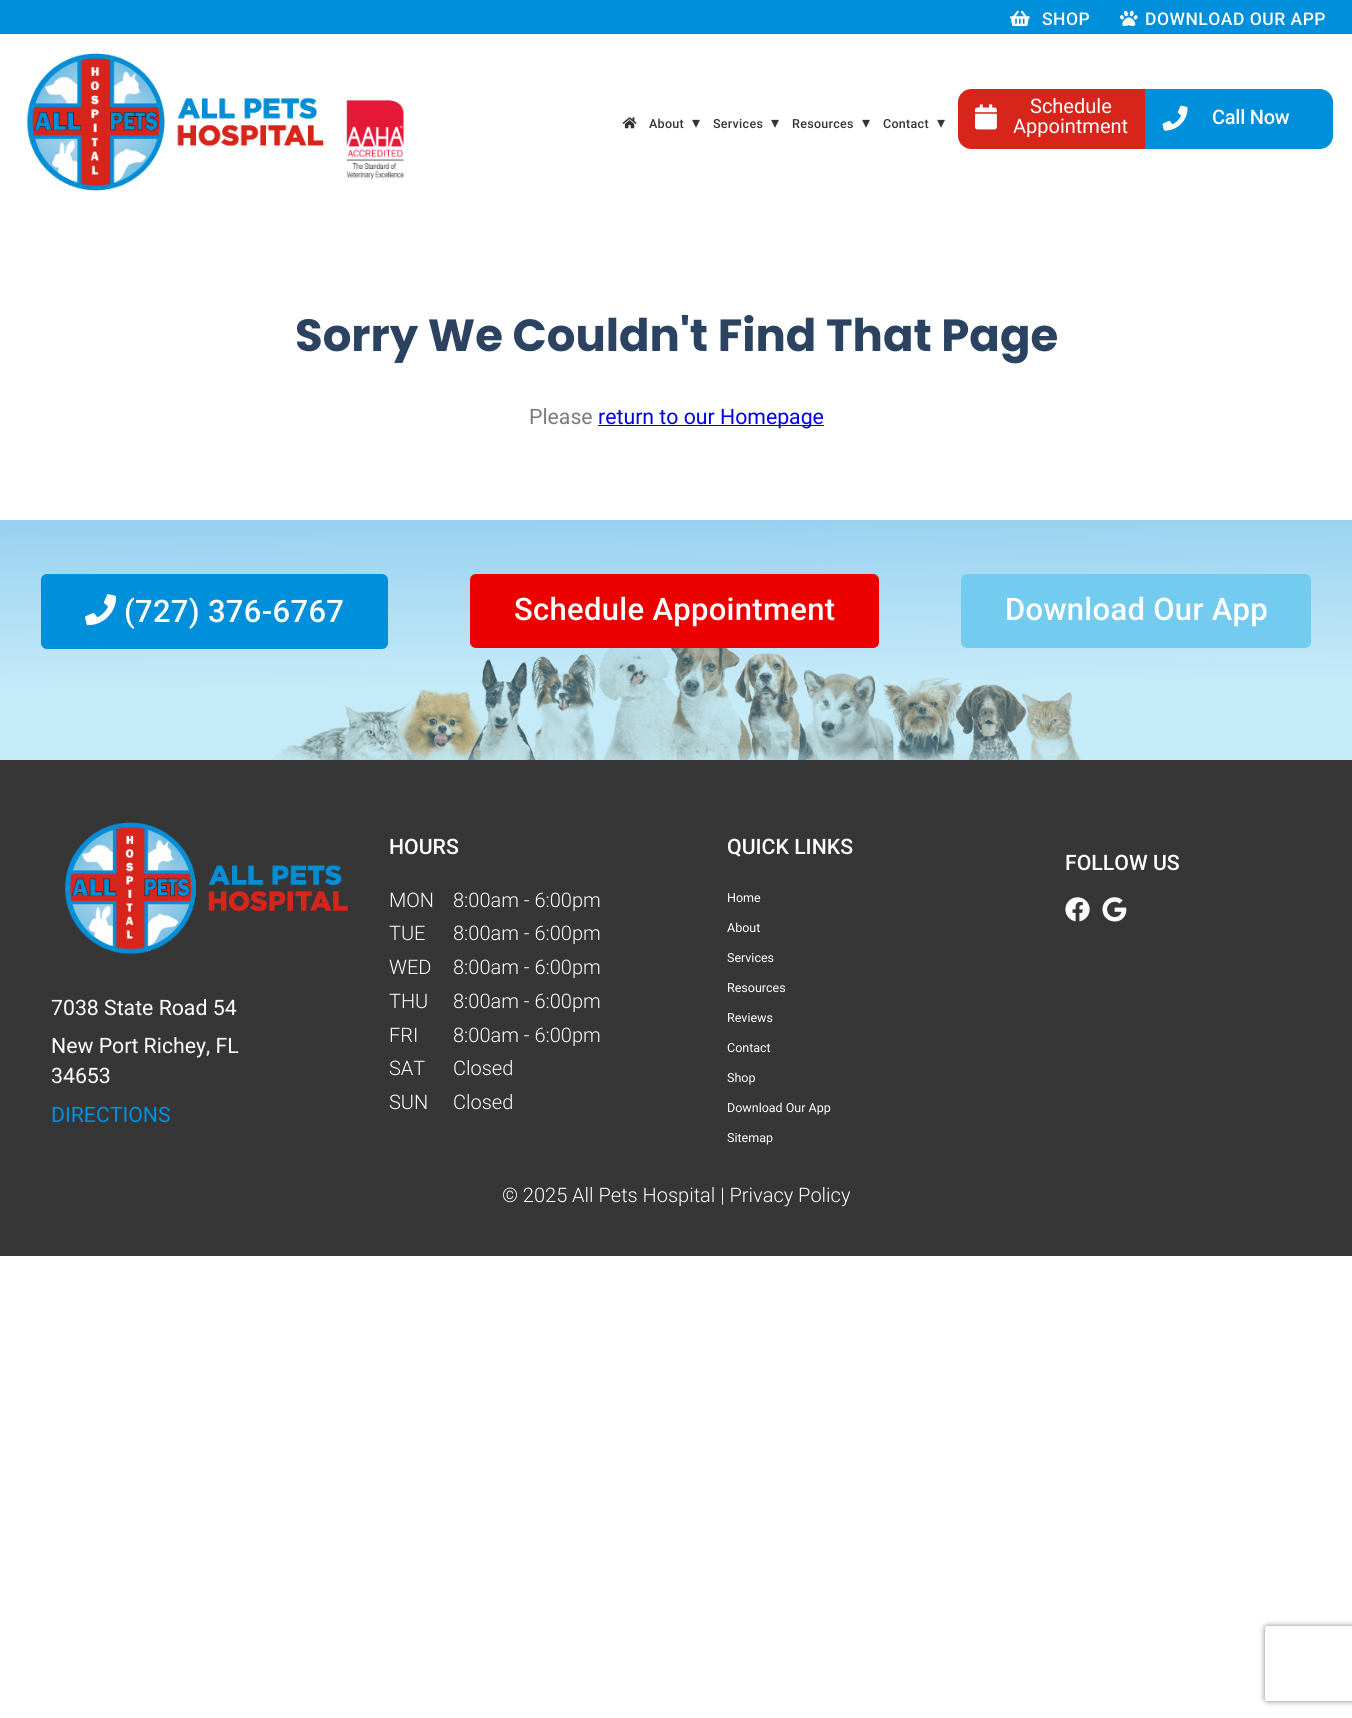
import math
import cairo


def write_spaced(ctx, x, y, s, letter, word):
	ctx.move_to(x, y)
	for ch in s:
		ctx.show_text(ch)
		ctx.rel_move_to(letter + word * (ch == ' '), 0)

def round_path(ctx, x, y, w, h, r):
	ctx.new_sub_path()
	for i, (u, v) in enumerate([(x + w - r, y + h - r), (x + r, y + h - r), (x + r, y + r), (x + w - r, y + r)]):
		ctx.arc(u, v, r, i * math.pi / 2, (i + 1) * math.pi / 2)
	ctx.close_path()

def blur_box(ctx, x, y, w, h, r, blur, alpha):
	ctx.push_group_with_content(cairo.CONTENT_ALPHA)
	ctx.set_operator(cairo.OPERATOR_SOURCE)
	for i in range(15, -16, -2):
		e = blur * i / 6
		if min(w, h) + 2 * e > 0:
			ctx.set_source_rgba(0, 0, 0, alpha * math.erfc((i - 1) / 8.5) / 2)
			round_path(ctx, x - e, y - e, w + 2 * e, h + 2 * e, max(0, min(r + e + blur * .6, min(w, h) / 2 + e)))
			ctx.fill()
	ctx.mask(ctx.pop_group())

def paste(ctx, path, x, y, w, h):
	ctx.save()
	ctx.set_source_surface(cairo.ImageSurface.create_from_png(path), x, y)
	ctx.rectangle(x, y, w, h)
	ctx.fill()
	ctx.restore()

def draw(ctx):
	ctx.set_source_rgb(1, 1, 1)
	ctx.paint()
	ctx.set_source_rgb(0, 0.561, 0.855)
	ctx.rectangle(0, 0, 1352, 34)
	ctx.fill()
	paste(ctx, 'media/1.png', 1010, 10, 20, 17)
	ctx.select_font_face('Roboto Medium')
	ctx.set_font_size(17.5)
	ctx.set_source_rgb(1, 1, 1)
	write_spaced(ctx, 1042, 25, 'SHOP', 0.5, 0)
	paste(ctx, 'media/2.png', 1120, 10, 18, 17)
	write_spaced(ctx, 1145, 25, 'DOWNLOAD OUR APP', 0.5, 0)
	paste(ctx, 'media/3.png', 26, 53, 378, 138)
	paste(ctx, 'media/4.png', 622, 117, 15, 12)
	ctx.set_font_size(12.5)
	ctx.set_source_rgb(0.212, 0.212, 0.212)
	write_spaced(ctx, 649, 128, 'About', 0.3, 0)
	ctx.select_font_face('DejaVu Sans')
	ctx.set_font_size(16)
	write_spaced(ctx, 692, 128, '▾', 0.3, 0)
	ctx.select_font_face('Roboto Medium')
	ctx.set_font_size(12.5)
	write_spaced(ctx, 713, 128, 'Services', 0.3, 0)
	ctx.select_font_face('DejaVu Sans')
	ctx.set_font_size(16)
	write_spaced(ctx, 771, 128, '▾', 0.3, 0)
	ctx.select_font_face('Roboto Medium')
	ctx.set_font_size(12.5)
	write_spaced(ctx, 792, 128, 'Resources', 0.3, 0)
	ctx.select_font_face('DejaVu Sans')
	ctx.set_font_size(16)
	write_spaced(ctx, 862, 128, '▾', 0.3, 0)
	ctx.select_font_face('Roboto Medium')
	ctx.set_font_size(12.5)
	write_spaced(ctx, 883, 128, 'Contact', 0.3, 0)
	ctx.select_font_face('DejaVu Sans')
	ctx.set_font_size(16)
	write_spaced(ctx, 937, 128, '▾', 0.3, 0)
	ctx.set_source_rgb(0.847, 0.145, 0.11)
	ctx.new_path()
	ctx.move_to(971, 89)
	ctx.line_to(1145, 89)
	ctx.line_to(1145, 149)
	ctx.line_to(971, 149)
	ctx.curve_to(964, 149, 958, 143, 958, 136)
	ctx.line_to(958, 102)
	ctx.curve_to(958, 95, 964, 89, 971, 89)
	ctx.close_path()
	ctx.fill()
	paste(ctx, 'media/5.png', 975, 104, 22, 26)
	ctx.select_font_face('Roboto')
	ctx.set_font_size(20)
	ctx.set_source_rgb(1, 1, 1)
	ctx.move_to(1030, 113)
	ctx.show_text('Schedule')
	ctx.move_to(1013, 133)
	ctx.show_text('Appointment')
	ctx.set_source_rgb(0, 0.561, 0.855)
	ctx.new_path()
	ctx.move_to(1145, 89)
	ctx.line_to(1320, 89)
	ctx.curve_to(1327, 89, 1333, 95, 1333, 102)
	ctx.line_to(1333, 136)
	ctx.curve_to(1333, 143, 1327, 149, 1320, 149)
	ctx.line_to(1145, 149)
	ctx.close_path()
	ctx.fill()
	paste(ctx, 'media/6.png', 1162, 105, 26, 26)
	ctx.select_font_face('Roboto Medium')
	ctx.set_source_rgb(1, 1, 1)
	write_spaced(ctx, 1212, 124, 'Call Now', -0.25, 0)
	ctx.select_font_face('Poppins', cairo.FONT_SLANT_NORMAL, cairo.FONT_WEIGHT_BOLD)
	ctx.set_font_size(45)
	ctx.set_source_rgb(0.169, 0.263, 0.376)
	ctx.move_to(295, 351)
	ctx.show_text('Sorry We Couldn\'t Find That Page')
	ctx.select_font_face('Roboto')
	ctx.set_font_size(21.25)
	ctx.set_source_rgb(0.486, 0.486, 0.486)
	ctx.move_to(529, 424)
	ctx.show_text('Please')
	ctx.set_source_rgb(0, 0, 0.933)
	ctx.rectangle(598, 425, 226, 1)
	ctx.fill()
	ctx.move_to(598, 424)
	ctx.show_text('return to our Homepage')
	paste(ctx, 'media/7.png', 0, 520, 1352, 240)
	ctx.set_source_rgb(0, 0.561, 0.855)
	round_path(ctx, 41, 574, 347, 75, 6)
	ctx.fill()
	paste(ctx, 'media/8.png', 85, 594, 32, 32)
	ctx.select_font_face('Roboto Medium')
	ctx.set_font_size(31)
	ctx.set_source_rgb(1, 1, 1)
	write_spaced(ctx, 124, 622, '(727) 376-6767', 0.3, 0)
	ctx.set_source_rgb(0.925, 0, 0)
	round_path(ctx, 470, 574, 409, 74, 6)
	ctx.fill()
	ctx.set_source_rgb(1, 1, 1)
	write_spaced(ctx, 514, 620, 'Schedule Appointment', 0.3, 0)
	ctx.set_source_rgb(0.451, 0.8, 0.941)
	round_path(ctx, 961, 574, 350, 74, 6)
	ctx.fill()
	ctx.set_source_rgb(1, 1, 1)
	write_spaced(ctx, 1005, 620, 'Download Our App', 0.3, 0)
	ctx.set_source_rgb(0.212, 0.212, 0.212)
	ctx.rectangle(0, 760, 1352, 496)
	ctx.fill()
	ctx.set_font_size(21.25)
	ctx.set_source_rgb(1, 1, 1)
	ctx.move_to(389, 854)
	ctx.show_text('HOURS')
	ctx.select_font_face('Roboto Light')
	ctx.set_font_size(20)
	for x, y, s in [
		(389, 907, 'MON'),
		(453, 907, '8:00am - 6:00pm'),
		(389, 940, 'TUE'),
		(453, 940, '8:00am - 6:00pm'),
		(389, 974, 'WED'),
		(453, 974, '8:00am - 6:00pm'),
		(389, 1008, 'THU'),
		(453, 1008, '8:00am - 6:00pm'),
		(389, 1042, 'FRI'),
		(453, 1042, '8:00am - 6:00pm'),
		(389, 1075, 'SAT'),
		(453, 1075, 'Closed'),
		(389, 1109, 'SUN'),
		(453, 1109, 'Closed'),
	]:
		ctx.move_to(x, y)
		ctx.show_text(s)
	ctx.select_font_face('Roboto Medium')
	ctx.set_font_size(21.25)
	ctx.move_to(727, 854)
	ctx.show_text('QUICK LINKS')
	ctx.select_font_face('Roboto')
	ctx.set_font_size(12.5)
	for x, y, s in [
		(727, 902, 'Home'),
		(727, 932, 'About'),
		(727, 962, 'Services'),
		(727, 992, 'Resources'),
		(727, 1022, 'Reviews'),
		(727, 1052, 'Contact'),
		(727, 1082, 'Shop'),
		(727, 1112, 'Download Our App'),
		(727, 1142, 'Sitemap'),
	]:
		ctx.move_to(x, y)
		ctx.show_text(s)
	ctx.select_font_face('Roboto Medium')
	ctx.set_font_size(21.25)
	ctx.move_to(1065, 870)
	ctx.show_text('FOLLOW US')
	paste(ctx, 'media/9.png', 1065, 897, 25, 25)
	paste(ctx, 'media/10.png', 1102, 897, 25, 25)
	paste(ctx, 'media/11.png', 65, 822, 283, 133)
	ctx.select_font_face('Roboto')
	for x, y, s in [
		(51, 1015, '7038 State Road 54'),
		(51, 1053, 'New Port Richey, FL'),
		(51, 1083, '34653'),
	]:
		ctx.move_to(x, y)
		ctx.show_text(s)
	ctx.set_source_rgb(0, 0.561, 0.855)
	ctx.move_to(51, 1122)
	ctx.show_text('DIRECTIONS')
	ctx.select_font_face('Roboto Light')
	ctx.set_font_size(20)
	ctx.set_source_rgb(1, 1, 1)
	ctx.move_to(502, 1202)
	ctx.show_text('© 2025 All Pets Hospital | Privacy Policy')
	ctx.save()
	ctx.set_fill_rule(cairo.FILL_RULE_EVEN_ODD)
	ctx.new_path()
	ctx.move_to(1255, 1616)
	ctx.line_to(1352, 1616)
	ctx.line_to(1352, 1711)
	ctx.line_to(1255, 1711)
	ctx.close_path()
	ctx.move_to(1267.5, 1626)
	ctx.line_to(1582.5, 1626)
	ctx.curve_to(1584, 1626, 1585, 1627, 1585, 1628.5)
	ctx.line_to(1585, 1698.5)
	ctx.curve_to(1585, 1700, 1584, 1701, 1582.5, 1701)
	ctx.line_to(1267.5, 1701)
	ctx.curve_to(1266, 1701, 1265, 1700, 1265, 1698.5)
	ctx.line_to(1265, 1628.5)
	ctx.curve_to(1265, 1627, 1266, 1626, 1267.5, 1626)
	ctx.close_path()
	ctx.clip()
	ctx.set_source_rgb(0.502, 0.502, 0.502)
	blur_box(ctx, 1265, 1626, 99, 75, 2.5, 3, 1)
	ctx.restore()


surface = cairo.ImageSurface(cairo.FORMAT_RGB24, 1352, 1718)
ctx = cairo.Context(surface)
options = cairo.FontOptions()
options.set_hint_metrics(cairo.HINT_METRICS_OFF)
options.set_hint_style(cairo.HINT_STYLE_NONE)
ctx.set_font_options(options)
ctx.set_miter_limit(4)
draw(ctx)
surface.write_to_png('image.png')
